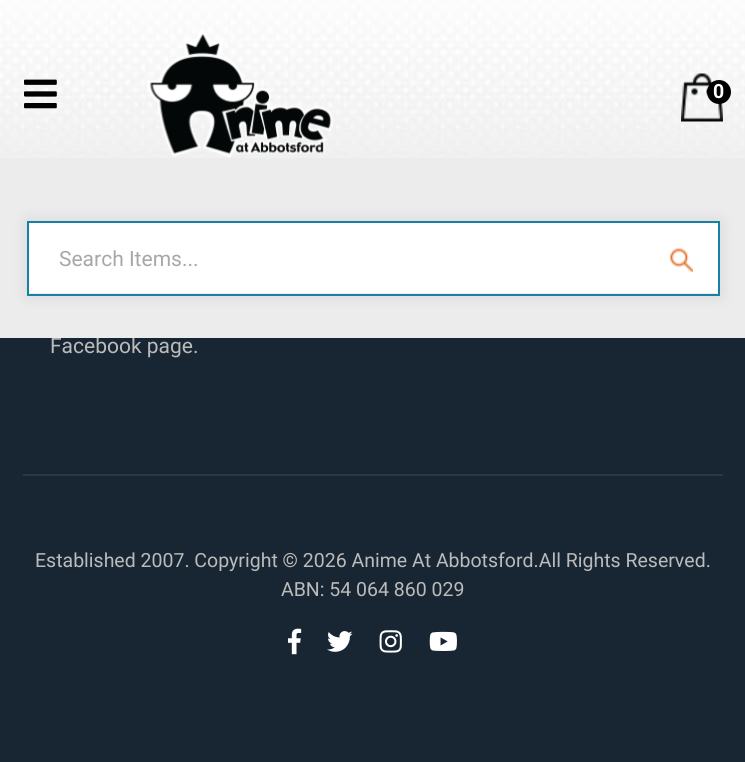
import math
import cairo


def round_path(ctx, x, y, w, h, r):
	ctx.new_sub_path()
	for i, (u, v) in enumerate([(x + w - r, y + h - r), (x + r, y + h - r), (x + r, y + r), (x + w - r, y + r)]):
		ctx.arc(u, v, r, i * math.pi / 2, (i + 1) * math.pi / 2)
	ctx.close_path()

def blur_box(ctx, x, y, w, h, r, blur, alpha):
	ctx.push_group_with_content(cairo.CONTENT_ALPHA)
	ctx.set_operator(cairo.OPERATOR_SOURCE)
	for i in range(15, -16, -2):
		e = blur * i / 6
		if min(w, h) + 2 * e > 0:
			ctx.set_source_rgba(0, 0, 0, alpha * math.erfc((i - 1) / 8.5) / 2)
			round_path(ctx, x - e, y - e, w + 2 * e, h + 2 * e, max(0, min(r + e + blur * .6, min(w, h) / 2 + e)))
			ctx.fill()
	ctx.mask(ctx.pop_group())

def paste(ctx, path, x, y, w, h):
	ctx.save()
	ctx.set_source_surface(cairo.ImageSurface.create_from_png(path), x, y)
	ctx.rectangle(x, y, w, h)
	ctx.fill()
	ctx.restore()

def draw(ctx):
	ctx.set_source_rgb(0.094, 0.149, 0.204)
	ctx.paint()
	ctx.select_font_face('Roboto')
	ctx.set_font_size(21)
	ctx.set_source_rgb(0.733, 0.733, 0.733)
	ctx.move_to(50, 353)
	ctx.show_text('Facebook page.')
	ctx.set_source_rgb(0.925, 0.925, 0.925)
	ctx.rectangle(0, 158, 745, 180)
	ctx.fill()
	paste(ctx, 'media/1.png', 0, 0, 745, 158)
	paste(ctx, 'media/2.png', 24, 79, 33, 30)
	paste(ctx, 'media/3.png', 147, 29, 186, 129)
	paste(ctx, 'media/4.png', 681, 73, 42, 49)
	ctx.set_source_rgb(0, 0, 0)
	ctx.arc(719, 92, 12, 0, 2 * math.pi)
	ctx.fill()
	ctx.select_font_face('Roboto', cairo.FONT_SLANT_NORMAL, cairo.FONT_WEIGHT_BOLD)
	ctx.set_font_size(19.5)
	ctx.set_source_rgb(1, 1, 1)
	ctx.move_to(713, 98)
	ctx.show_text('0')
	ctx.rectangle(29, 223, 689, 70)
	ctx.fill()
	ctx.save()
	ctx.set_fill_rule(cairo.FILL_RULE_EVEN_ODD)
	ctx.new_path()
	ctx.move_to(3, 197)
	ctx.line_to(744, 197)
	ctx.line_to(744, 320)
	ctx.line_to(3, 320)
	ctx.close_path()
	ctx.move_to(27, 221)
	ctx.line_to(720, 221)
	ctx.line_to(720, 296)
	ctx.line_to(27, 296)
	ctx.close_path()
	ctx.clip()
	ctx.set_source_rgb(0, 0, 0)
	blur_box(ctx, 27, 221, 693, 75, 0, 7.5, 0.1)
	ctx.restore()
	ctx.rectangle(28, 222, 691, 73)
	ctx.set_source_rgb(0.086, 0.506, 0.647)
	ctx.stroke()
	ctx.select_font_face('Roboto')
	ctx.set_font_size(21)
	ctx.set_source_rgb(0.655, 0.655, 0.655)
	ctx.move_to(59, 266)
	ctx.show_text('Search Items...')
	paste(ctx, 'media/5.png', 670, 248, 23, 24)
	ctx.set_source_rgb(0.157, 0.22, 0.286)
	ctx.rectangle(23, 474, 700, 2)
	ctx.fill()
	ctx.set_font_size(19.5)
	ctx.set_source_rgb(0.733, 0.733, 0.733)
	ctx.move_to(35, 567)
	ctx.show_text('Established 2007. Copyright © 2026 Anime At Abbotsford.All Rights Reserved.')
	ctx.move_to(281, 596)
	ctx.show_text('ABN: 54 064 860 029')
	paste(ctx, 'media/6.png', 288, 628, 14, 27)
	paste(ctx, 'media/7.png', 327, 631, 26, 21)
	paste(ctx, 'media/8.png', 379, 630, 23, 23)
	paste(ctx, 'media/9.png', 429, 631, 28, 20)


surface = cairo.ImageSurface(cairo.FORMAT_RGB24, 745, 762)
ctx = cairo.Context(surface)
options = cairo.FontOptions()
options.set_hint_metrics(cairo.HINT_METRICS_OFF)
options.set_hint_style(cairo.HINT_STYLE_NONE)
ctx.set_font_options(options)
ctx.set_miter_limit(4)
draw(ctx)
surface.write_to_png('image.png')
